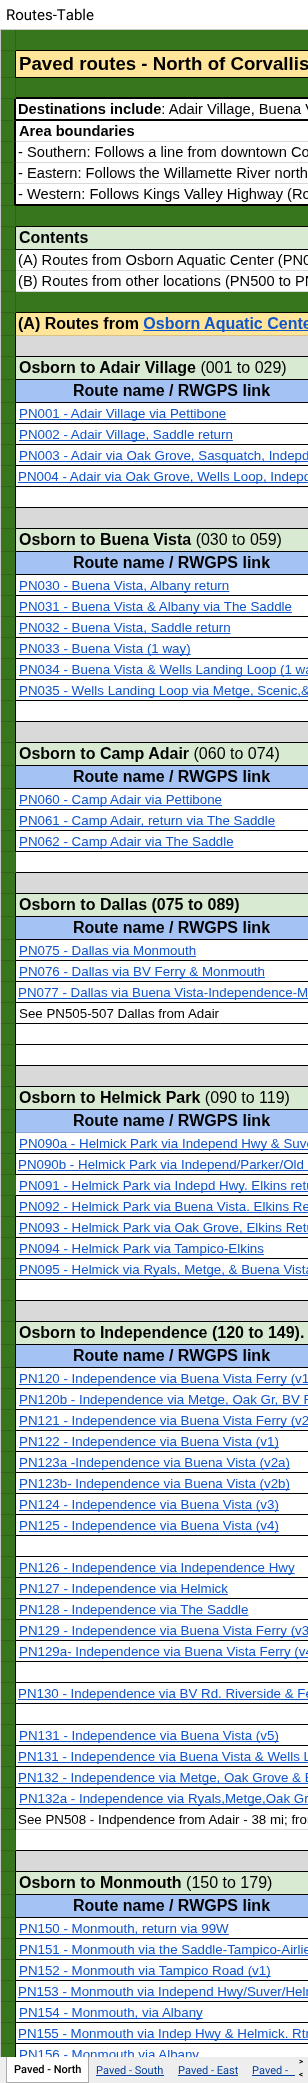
import math
import cairo


def paste(ctx, path, x, y, w, h):
	ctx.save()
	ctx.set_source_surface(cairo.ImageSurface.create_from_png(path), x, y)
	ctx.rectangle(x, y, w, h)
	ctx.fill()
	ctx.restore()

def draw(ctx):
	ctx.set_source_rgb(1, 1, 1)
	ctx.paint()
	ctx.set_source_rgb(0.8, 0.8, 0.8)
	ctx.rectangle(0, 29, 308, 1)
	ctx.fill()
	ctx.select_font_face('Roboto')
	ctx.set_font_size(15)
	ctx.set_source_rgb(0, 0, 0)
	ctx.move_to(6, 20)
	ctx.show_text('Routes-Table')
	paste(ctx, 'media/1.png', 0, 30, 308, 2027)
	ctx.set_source_rgb(0.933, 0.933, 0.933)
	ctx.rectangle(0, 2057, 308, 26)
	ctx.fill()
	ctx.set_source_rgb(1, 1, 1)
	ctx.rectangle(7, 2057, 81, 25)
	ctx.fill()
	ctx.set_source_rgb(0.671, 0.671, 0.671)
	ctx.rectangle(88, 2057, 1, 26)
	ctx.rectangle(6, 2082, 83, 1)
	ctx.rectangle(6, 2057, 1, 26)
	ctx.fill()
	ctx.select_font_face('Roboto Medium')
	ctx.set_font_size(11)
	ctx.set_source_rgb(0, 0, 0)
	ctx.move_to(14, 2073)
	ctx.show_text('Paved - North')
	ctx.select_font_face('Roboto')
	ctx.set_source_rgb(0.016, 0.251, 0.624)
	ctx.move_to(96, 2074)
	ctx.show_text('Paved - South')
	ctx.rectangle(96, 2075, 68, 1)
	ctx.fill()
	ctx.move_to(178, 2074)
	ctx.show_text('Paved - East')
	ctx.rectangle(178, 2075, 60, 1)
	ctx.fill()
	ctx.move_to(252, 2074)
	ctx.show_text('Paved -')
	ctx.rectangle(252, 2075, 43, 1)
	ctx.fill()
	ctx.select_font_face('Roboto', cairo.FONT_SLANT_NORMAL, cairo.FONT_WEIGHT_BOLD)
	ctx.set_font_size(8)
	ctx.set_source_rgb(0, 0, 0)
	ctx.move_to(299, 2064)
	ctx.show_text('>')
	ctx.move_to(299, 2077)
	ctx.show_text('<')


surface = cairo.ImageSurface(cairo.FORMAT_RGB24, 308, 2083)
ctx = cairo.Context(surface)
options = cairo.FontOptions()
options.set_hint_metrics(cairo.HINT_METRICS_OFF)
options.set_hint_style(cairo.HINT_STYLE_NONE)
ctx.set_font_options(options)
ctx.set_miter_limit(4)
draw(ctx)
surface.write_to_png('image.png')
